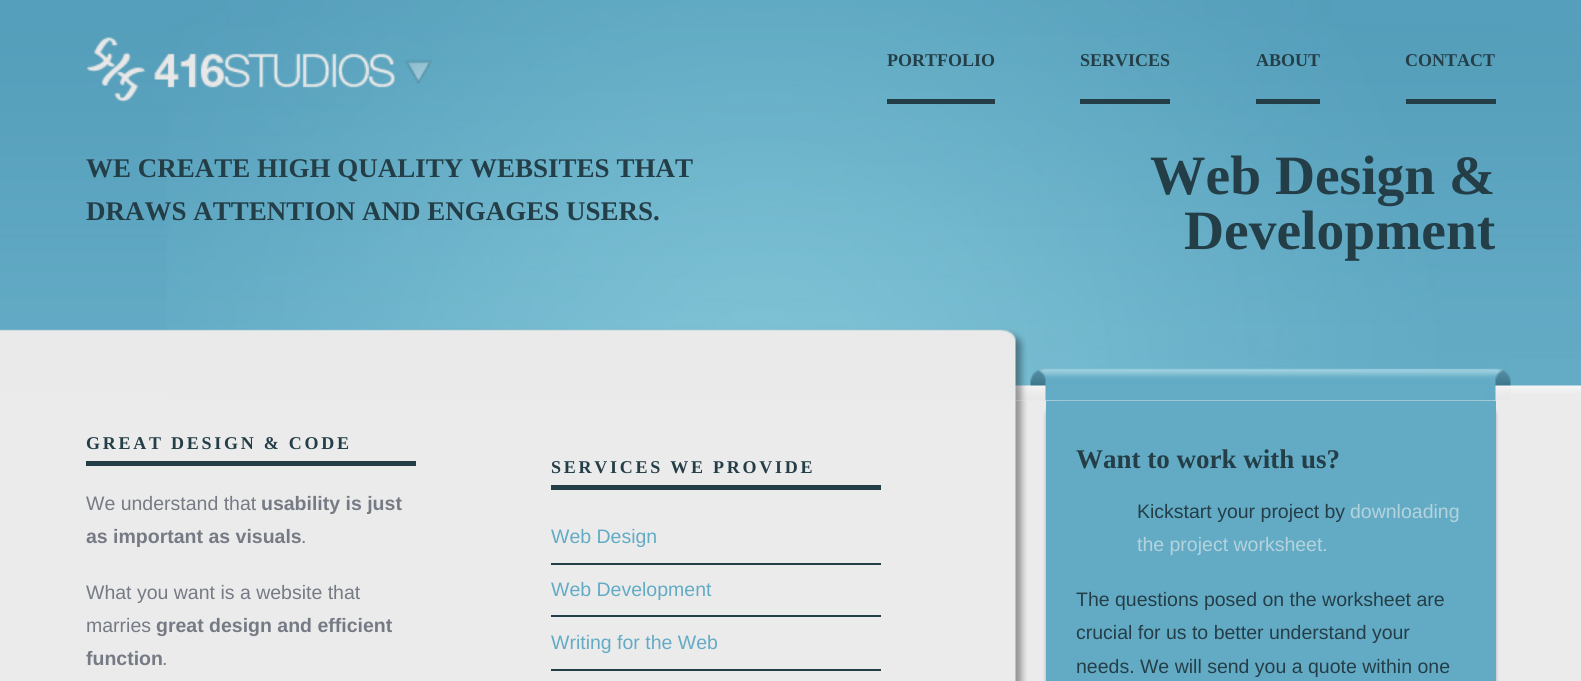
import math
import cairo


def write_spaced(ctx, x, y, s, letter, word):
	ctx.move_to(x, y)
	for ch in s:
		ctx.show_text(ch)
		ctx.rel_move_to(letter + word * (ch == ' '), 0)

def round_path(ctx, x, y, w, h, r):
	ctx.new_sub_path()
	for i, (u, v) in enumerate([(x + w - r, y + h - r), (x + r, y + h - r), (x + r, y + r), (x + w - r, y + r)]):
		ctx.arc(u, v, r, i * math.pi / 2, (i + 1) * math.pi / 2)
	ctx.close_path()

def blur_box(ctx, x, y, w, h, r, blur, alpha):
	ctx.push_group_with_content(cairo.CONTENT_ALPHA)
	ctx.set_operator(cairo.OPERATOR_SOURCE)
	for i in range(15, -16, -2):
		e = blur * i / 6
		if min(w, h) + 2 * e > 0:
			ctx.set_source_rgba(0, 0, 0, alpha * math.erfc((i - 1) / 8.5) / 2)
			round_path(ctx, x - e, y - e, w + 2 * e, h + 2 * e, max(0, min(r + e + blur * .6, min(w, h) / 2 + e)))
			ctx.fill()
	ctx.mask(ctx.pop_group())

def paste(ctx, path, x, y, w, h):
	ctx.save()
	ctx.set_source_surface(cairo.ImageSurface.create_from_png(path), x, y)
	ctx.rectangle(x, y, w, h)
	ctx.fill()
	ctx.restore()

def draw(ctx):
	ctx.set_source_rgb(0.918, 0.918, 0.918)
	ctx.paint()
	paste(ctx, 'media/1.png', 0, 0, 1581, 393)
	paste(ctx, 'media/2.png', 0, 329, 167, 64)
	ctx.set_source_rgb(0.631, 0.631, 0.631)
	blur_box(ctx, 1046, 402, 450, 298, 14, 1.5, 1)
	paste(ctx, 'media/3.png', 167, 0, 1344, 401)
	paste(ctx, 'media/4.png', 86, 37, 346, 65)
	ctx.set_source_rgb(0.141, 0.243, 0.282)
	ctx.rectangle(887, 99, 108, 5)
	ctx.fill()
	ctx.select_font_face('Liberation Serif', cairo.FONT_SLANT_NORMAL, cairo.FONT_WEIGHT_BOLD)
	ctx.set_font_size(18)
	ctx.move_to(887, 66)
	ctx.show_text('PORTFOLIO')
	ctx.rectangle(1080, 99, 90, 5)
	ctx.fill()
	ctx.move_to(1080, 66)
	ctx.show_text('SERVICES')
	ctx.rectangle(1256, 99, 64, 5)
	ctx.fill()
	ctx.move_to(1256, 66)
	ctx.show_text('ABOUT')
	ctx.rectangle(1406, 99, 90, 5)
	ctx.fill()
	ctx.move_to(1405, 66)
	ctx.show_text('CONTACT')
	ctx.set_font_size(27)
	ctx.move_to(86, 177)
	ctx.show_text('WE CREATE HIGH QUALITY WEBSITES THAT')
	ctx.move_to(86, 220)
	ctx.show_text('DRAWS ATTENTION AND ENGAGES USERS.')
	ctx.set_font_size(55.5)
	ctx.move_to(1150, 194)
	ctx.show_text('Web Design &')
	ctx.move_to(1184, 249)
	ctx.show_text('Development')
	paste(ctx, 'media/5.png', 1015, 400, 12, 281)
	ctx.rectangle(86, 461, 330, 5)
	ctx.fill()
	ctx.set_font_size(18)
	write_spaced(ctx, 86, 449, 'GREAT DESIGN & CODE', 2.75, 0)
	ctx.select_font_face('Liberation Sans')
	ctx.set_font_size(19.5)
	ctx.set_source_rgb(0.459, 0.478, 0.518)
	ctx.move_to(86, 510)
	ctx.show_text('We understand that')
	ctx.select_font_face('Liberation Sans', cairo.FONT_SLANT_NORMAL, cairo.FONT_WEIGHT_BOLD)
	ctx.move_to(261, 510)
	ctx.show_text('usability is just')
	ctx.move_to(86, 543)
	ctx.show_text('as important as visuals')
	ctx.select_font_face('Liberation Sans')
	for x, y, s in [
		(301, 543, '.'),
		(86, 599, 'What you want is a website that'),
		(86, 632, 'marries'),
	]:
		ctx.move_to(x, y)
		ctx.show_text(s)
	ctx.select_font_face('Liberation Sans', cairo.FONT_SLANT_NORMAL, cairo.FONT_WEIGHT_BOLD)
	ctx.move_to(156, 632)
	ctx.show_text('great design and efficient')
	ctx.move_to(86, 665)
	ctx.show_text('function')
	ctx.select_font_face('Liberation Sans')
	ctx.move_to(162, 665)
	ctx.show_text('.')
	ctx.set_source_rgb(0.141, 0.243, 0.282)
	ctx.rectangle(551, 485, 330, 5)
	ctx.fill()
	ctx.select_font_face('Liberation Serif', cairo.FONT_SLANT_NORMAL, cairo.FONT_WEIGHT_BOLD)
	ctx.set_font_size(18)
	write_spaced(ctx, 551, 473, 'SERVICES WE PROVIDE', 2.75, 0)
	ctx.rectangle(551, 563, 330, 2)
	ctx.fill()
	ctx.select_font_face('Liberation Sans')
	ctx.set_font_size(19.5)
	ctx.set_source_rgb(0.388, 0.671, 0.773)
	ctx.move_to(551, 543)
	ctx.show_text('Web Design')
	ctx.set_source_rgb(0.141, 0.243, 0.282)
	ctx.rectangle(551, 615, 330, 2)
	ctx.fill()
	ctx.set_source_rgb(0.388, 0.671, 0.773)
	ctx.move_to(551, 596)
	ctx.show_text('Web Development')
	ctx.set_source_rgb(0.141, 0.243, 0.282)
	ctx.rectangle(551, 669, 330, 2)
	ctx.fill()
	ctx.set_source_rgb(0.388, 0.671, 0.773)
	ctx.move_to(551, 649)
	ctx.show_text('Writing for the Web')
	ctx.rectangle(1046, 401, 450, 280)
	ctx.fill()
	ctx.select_font_face('Liberation Serif', cairo.FONT_SLANT_NORMAL, cairo.FONT_WEIGHT_BOLD)
	ctx.set_font_size(27)
	ctx.set_source_rgb(0.141, 0.243, 0.282)
	ctx.move_to(1076, 468)
	ctx.show_text('Want to work with us?')
	ctx.select_font_face('Liberation Sans')
	ctx.set_font_size(19.5)
	ctx.move_to(1137, 518)
	ctx.show_text('Kickstart your project by')
	ctx.set_source_rgb(0.706, 0.827, 0.867)
	ctx.move_to(1350, 518)
	ctx.show_text('downloading')
	ctx.move_to(1137, 551)
	ctx.show_text('the project worksheet.')
	ctx.set_source_rgb(0.141, 0.243, 0.282)
	for x, y, s in [
		(1076, 606, 'The questions posed on the worksheet are'),
		(1076, 639, 'crucial for us to better understand your'),
		(1076, 673, 'needs. We will send you a quote within one'),
	]:
		ctx.move_to(x, y)
		ctx.show_text(s)


surface = cairo.ImageSurface(cairo.FORMAT_RGB24, 1581, 681)
ctx = cairo.Context(surface)
options = cairo.FontOptions()
options.set_hint_metrics(cairo.HINT_METRICS_OFF)
options.set_hint_style(cairo.HINT_STYLE_NONE)
ctx.set_font_options(options)
ctx.set_miter_limit(4)
draw(ctx)
surface.write_to_png('image.png')
